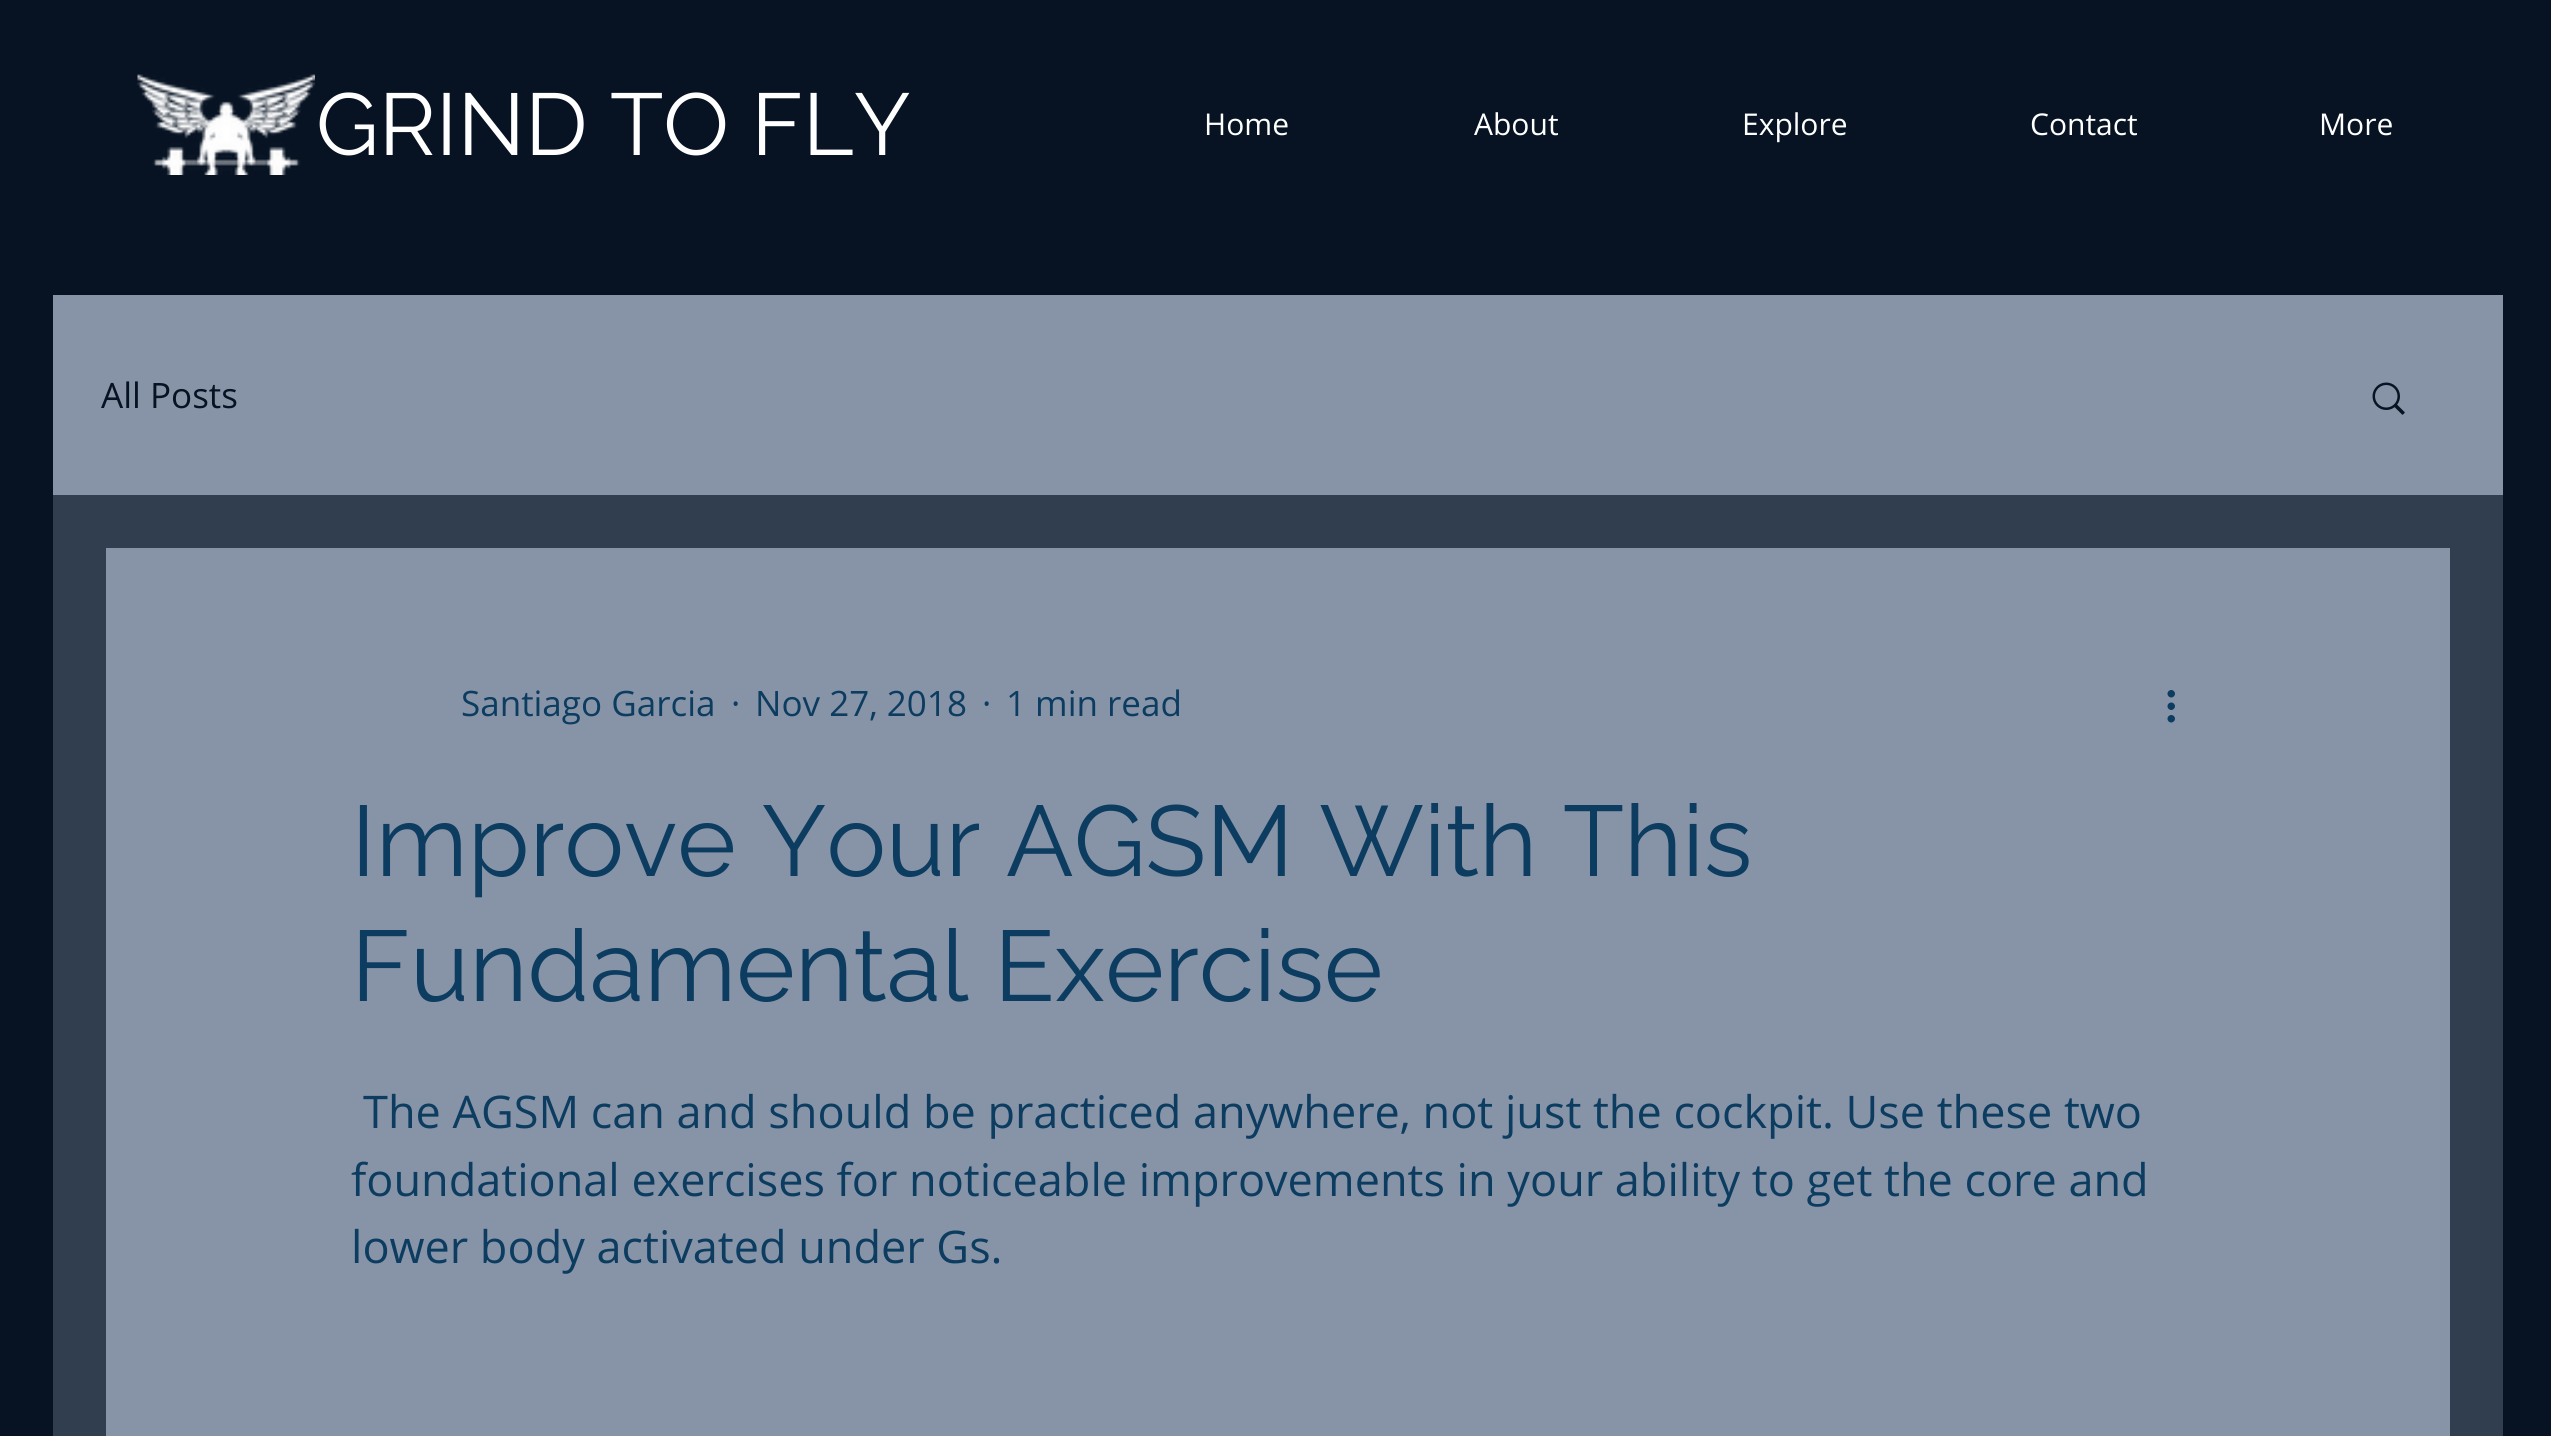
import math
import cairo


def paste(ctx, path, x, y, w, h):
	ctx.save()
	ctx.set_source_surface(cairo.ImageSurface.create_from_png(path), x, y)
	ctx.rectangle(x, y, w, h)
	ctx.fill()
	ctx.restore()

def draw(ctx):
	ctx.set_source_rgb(0.031, 0.078, 0.137)
	ctx.paint()
	paste(ctx, 'media/1.png', 137, 74, 178, 101)
	ctx.select_font_face('Raleway')
	ctx.set_font_size(87.5)
	ctx.set_source_rgb(1, 1, 1)
	ctx.move_to(316, 155)
	ctx.show_text('GRIND TO FLY')
	ctx.select_font_face('Open Sans')
	ctx.set_font_size(30)
	for x, y, s in [
		(1204, 135, 'Home'),
		(1474, 135, 'About'),
		(1742, 135, 'Explore'),
		(2030, 135, 'Contact'),
		(2319, 135, 'More'),
	]:
		ctx.move_to(x, y)
		ctx.show_text(s)
	ctx.set_source_rgb(0.192, 0.243, 0.31)
	ctx.rectangle(53, 495, 2450, 941)
	ctx.fill()
	ctx.set_source_rgb(0.529, 0.58, 0.655)
	ctx.rectangle(53, 295, 2450, 200)
	ctx.fill()
	ctx.set_font_size(35)
	ctx.set_source_rgb(0.031, 0.078, 0.137)
	ctx.move_to(101, 408)
	ctx.show_text('All Posts')
	paste(ctx, 'media/2.png', 2372, 382, 33, 33)
	ctx.set_source_rgb(0.529, 0.58, 0.655)
	ctx.rectangle(106, 548, 2344, 888)
	ctx.fill()
	ctx.set_source_rgb(0.047, 0.235, 0.376)
	for x, y, s in [
		(461, 716, 'Santiago Garcia'),
		(731, 716, '·'),
		(755, 716, 'Nov 27, 2018'),
		(982, 716, '·'),
		(1006, 716, '1 min read'),
	]:
		ctx.move_to(x, y)
		ctx.show_text(s)
	paste(ctx, 'media/3.png', 2167, 690, 8, 33)
	ctx.select_font_face('Raleway')
	ctx.set_font_size(100)
	ctx.move_to(351, 876)
	ctx.show_text('Improve Your AGSM With This')
	ctx.move_to(351, 1001)
	ctx.show_text('Fundamental Exercise')
	ctx.select_font_face('Open Sans')
	ctx.set_font_size(45)
	for x, y, s in [
		(363, 1128, 'The AGSM can and should be practiced anywhere, not just the cockpit. Use these two'),
		(351, 1196, 'foundational exercises for noticeable improvements in your ability to get the core and'),
		(351, 1263, 'lower body activated under Gs.'),
	]:
		ctx.move_to(x, y)
		ctx.show_text(s)


surface = cairo.ImageSurface(cairo.FORMAT_RGB24, 2551, 1436)
ctx = cairo.Context(surface)
options = cairo.FontOptions()
options.set_hint_metrics(cairo.HINT_METRICS_OFF)
options.set_hint_style(cairo.HINT_STYLE_NONE)
ctx.set_font_options(options)
ctx.set_miter_limit(4)
draw(ctx)
surface.write_to_png('image.png')
